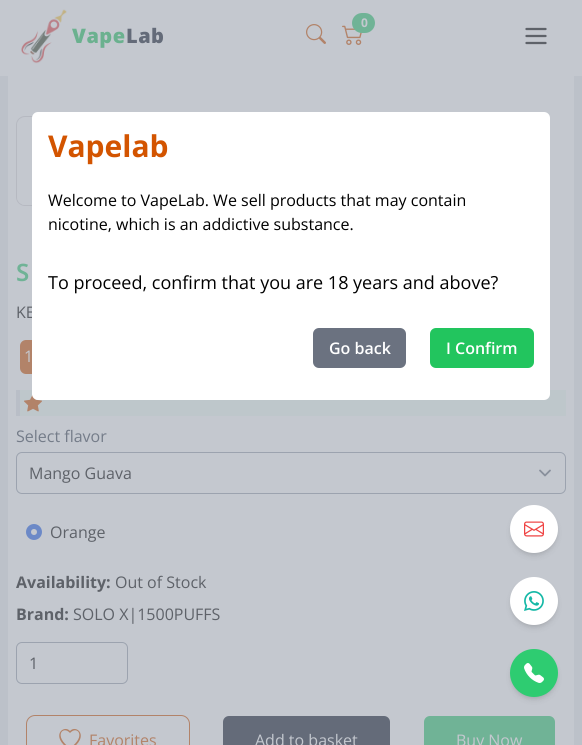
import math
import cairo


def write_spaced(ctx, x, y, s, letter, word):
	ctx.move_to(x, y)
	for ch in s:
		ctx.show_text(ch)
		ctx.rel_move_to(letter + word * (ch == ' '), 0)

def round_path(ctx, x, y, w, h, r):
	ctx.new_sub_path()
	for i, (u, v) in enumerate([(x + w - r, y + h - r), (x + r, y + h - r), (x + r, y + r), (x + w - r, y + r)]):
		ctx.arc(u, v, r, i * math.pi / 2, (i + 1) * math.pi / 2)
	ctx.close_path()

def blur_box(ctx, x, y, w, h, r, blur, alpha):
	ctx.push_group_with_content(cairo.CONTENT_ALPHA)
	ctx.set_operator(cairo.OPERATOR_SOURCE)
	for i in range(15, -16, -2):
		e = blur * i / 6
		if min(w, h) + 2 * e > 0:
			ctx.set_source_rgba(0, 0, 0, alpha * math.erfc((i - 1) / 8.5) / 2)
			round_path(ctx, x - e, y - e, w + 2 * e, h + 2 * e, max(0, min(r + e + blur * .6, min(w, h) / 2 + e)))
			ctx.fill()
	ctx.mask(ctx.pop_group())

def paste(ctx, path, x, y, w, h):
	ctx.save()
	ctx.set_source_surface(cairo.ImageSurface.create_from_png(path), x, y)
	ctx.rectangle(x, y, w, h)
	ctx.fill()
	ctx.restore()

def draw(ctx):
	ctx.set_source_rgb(0.737, 0.757, 0.788)
	ctx.paint()
	ctx.set_source_rgb(0.769, 0.784, 0.812)
	ctx.rectangle(0, 0, 582, 76)
	ctx.fill()
	paste(ctx, 'media/1.png', 342, 25, 20, 20)
	ctx.set_source_rgb(0.439, 0.702, 0.588)
	round_path(ctx, 352, 13, 23, 20, 10)
	ctx.fill()
	ctx.select_font_face('Open Sans', cairo.FONT_SLANT_NORMAL, cairo.FONT_WEIGHT_BOLD)
	ctx.set_font_size(12)
	ctx.set_source_rgb(0.769, 0.784, 0.812)
	ctx.move_to(361, 27)
	ctx.show_text('0')
	paste(ctx, 'media/2.png', 306, 24, 20, 20)
	paste(ctx, 'media/3.png', 21, 9, 46, 55)
	ctx.select_font_face('Open Sans ExtraBold')
	ctx.set_font_size(20)
	ctx.set_source_rgb(0.42, 0.694, 0.561)
	write_spaced(ctx, 72, 43, 'Vape', 0.5, 0)
	ctx.set_source_rgb(0.392, 0.42, 0.475)
	write_spaced(ctx, 126, 43, 'Lab', 0.5, 0)
	ctx.new_path()
	ctx.move_to(526.5, 29)
	ctx.line_to(545.5, 29)
	ctx.move_to(526.5, 36)
	ctx.line_to(545.5, 36)
	ctx.move_to(526.5, 43)
	ctx.line_to(545.5, 43)
	ctx.set_source_rgb(0.369, 0.384, 0.412)
	ctx.set_line_width(2.3)
	ctx.set_line_cap(cairo.LINE_CAP_ROUND)
	ctx.set_line_join(cairo.LINE_JOIN_ROUND)
	ctx.stroke()
	ctx.set_source_rgb(0.769, 0.784, 0.812)
	ctx.rectangle(8, 76, 566, 669)
	ctx.fill()
	round_path(ctx, 16.5, 116.5, 89, 89, 8.5)
	ctx.set_source_rgb(0.714, 0.725, 0.757)
	ctx.set_line_width(1)
	ctx.set_line_cap(cairo.LINE_CAP_BUTT)
	ctx.set_line_join(cairo.LINE_JOIN_MITER)
	ctx.stroke()
	paste(ctx, 'media/4.png', 17, 119, 15, 86)
	ctx.select_font_face('Noto Sans SemiBold')
	ctx.set_font_size(24)
	ctx.set_source_rgb(0.439, 0.702, 0.588)
	ctx.move_to(16, 281)
	ctx.show_text('S')
	ctx.select_font_face('Open Sans')
	ctx.set_font_size(16)
	ctx.set_source_rgb(0.369, 0.384, 0.412)
	ctx.move_to(16, 318)
	ctx.show_text('KE')
	ctx.set_source_rgb(0.698, 0.514, 0.412)
	round_path(ctx, 20, 340, 95, 34, 6)
	ctx.fill()
	ctx.set_source_rgb(0.769, 0.784, 0.812)
	ctx.move_to(24, 362)
	ctx.show_text('1')
	ctx.set_source_rgb(0.745, 0.78, 0.796)
	ctx.rectangle(20, 390, 546, 26)
	ctx.fill()
	ctx.set_source_rgb(0.725, 0.745, 0.78)
	ctx.rectangle(16, 390, 4, 26)
	ctx.fill()
	paste(ctx, 'media/5.png', 24, 394, 18, 18)
	ctx.set_source_rgb(0.455, 0.486, 0.537)
	ctx.move_to(16, 442)
	ctx.show_text('Select flavor')
	ctx.new_path()
	ctx.move_to(540, 470.5)
	ctx.line_to(545, 475.5)
	ctx.line_to(550, 470.5)
	ctx.set_source_rgb(0.533, 0.561, 0.612)
	ctx.set_line_width(1.8)
	ctx.set_line_cap(cairo.LINE_CAP_ROUND)
	ctx.set_line_join(cairo.LINE_JOIN_ROUND)
	ctx.stroke()
	round_path(ctx, 16.5, 452.5, 549, 41, 5.5)
	ctx.set_source_rgb(0.612, 0.639, 0.686)
	ctx.set_line_width(1)
	ctx.set_line_cap(cairo.LINE_CAP_BUTT)
	ctx.set_line_join(cairo.LINE_JOIN_MITER)
	ctx.stroke()
	ctx.set_source_rgb(0.369, 0.384, 0.412)
	ctx.move_to(29, 479)
	ctx.show_text('Mango Guava')
	ctx.set_source_rgb(0.424, 0.537, 0.78)
	ctx.new_path()
	ctx.arc(34, 532, 8, 0, 2 * math.pi)
	ctx.fill()
	ctx.set_source_rgb(0.769, 0.784, 0.812)
	ctx.arc(34, 532, 3, 0, 2 * math.pi)
	ctx.fill()
	ctx.set_source_rgb(0.369, 0.384, 0.412)
	ctx.move_to(50, 538)
	ctx.show_text('Orange')
	ctx.select_font_face('Open Sans', cairo.FONT_SLANT_NORMAL, cairo.FONT_WEIGHT_BOLD)
	ctx.move_to(16, 588)
	ctx.show_text('Availability:')
	ctx.select_font_face('Open Sans')
	ctx.move_to(115, 588)
	ctx.show_text('Out of Stock')
	ctx.select_font_face('Open Sans', cairo.FONT_SLANT_NORMAL, cairo.FONT_WEIGHT_BOLD)
	ctx.move_to(16, 620)
	ctx.show_text('Brand:')
	ctx.select_font_face('Open Sans')
	ctx.move_to(73, 620)
	ctx.show_text('SOLO X|1500PUFFS')
	round_path(ctx, 16.5, 642.5, 111, 41, 5.5)
	ctx.set_source_rgb(0.612, 0.639, 0.686)
	ctx.stroke()
	ctx.set_source_rgb(0.369, 0.384, 0.412)
	ctx.move_to(29, 669)
	ctx.show_text('1')
	round_path(ctx, 26.5, 715.5, 163, 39, 8.5)
	ctx.set_source_rgb(0.698, 0.514, 0.412)
	ctx.stroke()
	ctx.new_path()
	ctx.move_to(70, 733)
	ctx.curve_to(63, 725, 53, 736, 70, 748)
	ctx.curve_to(87, 736, 77, 725, 70, 733)
	ctx.close_path()
	ctx.move_to(70, 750)
	ctx.curve_to(49, 736, 64, 724, 70, 731)
	ctx.curve_to(76, 724, 91, 736, 70, 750)
	ctx.close_path()
	ctx.fill()
	ctx.move_to(89, 746)
	ctx.show_text('Favorites')
	ctx.set_source_rgb(0.392, 0.42, 0.475)
	round_path(ctx, 223, 716, 167, 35, 6)
	ctx.fill()
	ctx.set_source_rgb(0.769, 0.784, 0.812)
	ctx.move_to(255, 746)
	ctx.show_text('Add to basket')
	ctx.set_source_rgb(0.439, 0.702, 0.588)
	round_path(ctx, 424, 716, 131, 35, 6)
	ctx.fill()
	ctx.set_source_rgb(0.769, 0.784, 0.812)
	ctx.move_to(456, 746)
	ctx.show_text('Buy Now')
	ctx.set_source_rgb(0, 0, 0)
	blur_box(ctx, 512, 509, 44, 44, 22, 2, 0.1)
	blur_box(ctx, 511, 510, 46, 46, 23, 3, 0.1)
	ctx.set_source_rgb(1, 1, 1)
	ctx.arc(534, 529, 24, 0, 2 * math.pi)
	ctx.fill()
	paste(ctx, 'media/6.png', 524, 521, 20, 16)
	ctx.set_source_rgb(0, 0, 0)
	blur_box(ctx, 512, 581, 44, 44, 22, 2, 0.1)
	blur_box(ctx, 511, 582, 46, 46, 23, 3, 0.1)
	ctx.set_source_rgb(1, 1, 1)
	ctx.arc(534, 601, 24, 0, 2 * math.pi)
	ctx.fill()
	paste(ctx, 'media/7.png', 524, 591, 20, 20)
	ctx.set_source_rgb(0, 0, 0)
	blur_box(ctx, 512, 653, 44, 44, 22, 2, 0.1)
	blur_box(ctx, 511, 654, 46, 46, 23, 3, 0.1)
	ctx.set_source_rgb(0.18, 0.8, 0.443)
	ctx.arc(534, 673, 24, 0, 2 * math.pi)
	ctx.fill()
	paste(ctx, 'media/8.png', 524, 663, 20, 20)
	ctx.set_source_rgb(1, 1, 1)
	round_path(ctx, 32, 112, 518, 288, 6)
	ctx.fill()
	ctx.select_font_face('Open Sans', cairo.FONT_SLANT_NORMAL, cairo.FONT_WEIGHT_BOLD)
	ctx.set_font_size(30)
	ctx.set_source_rgb(0.827, 0.329, 0)
	ctx.move_to(48, 157)
	ctx.show_text('Vapelab')
	ctx.select_font_face('Open Sans')
	ctx.set_font_size(16)
	ctx.set_source_rgb(0, 0, 0)
	ctx.move_to(48, 206)
	ctx.show_text('Welcome to VapeLab. We sell products that may contain')
	ctx.move_to(48, 230)
	ctx.show_text('nicotine, which is an addictive substance.')
	ctx.set_font_size(18)
	ctx.move_to(48, 289)
	ctx.show_text('To proceed, confirm that you are 18 years and above?')
	ctx.set_source_rgb(0.42, 0.447, 0.502)
	round_path(ctx, 313, 328, 93, 40, 6)
	ctx.fill()
	ctx.select_font_face('Open Sans SemiBold')
	ctx.set_font_size(16)
	ctx.set_source_rgb(1, 1, 1)
	ctx.move_to(329, 354)
	ctx.show_text('Go back')
	ctx.set_source_rgb(0.133, 0.773, 0.369)
	round_path(ctx, 430, 328, 104, 40, 6)
	ctx.fill()
	ctx.set_source_rgb(1, 1, 1)
	ctx.move_to(446, 354)
	ctx.show_text('I Confirm')


surface = cairo.ImageSurface(cairo.FORMAT_RGB24, 582, 745)
ctx = cairo.Context(surface)
options = cairo.FontOptions()
options.set_hint_metrics(cairo.HINT_METRICS_OFF)
options.set_hint_style(cairo.HINT_STYLE_NONE)
ctx.set_font_options(options)
ctx.set_miter_limit(4)
draw(ctx)
surface.write_to_png('image.png')
